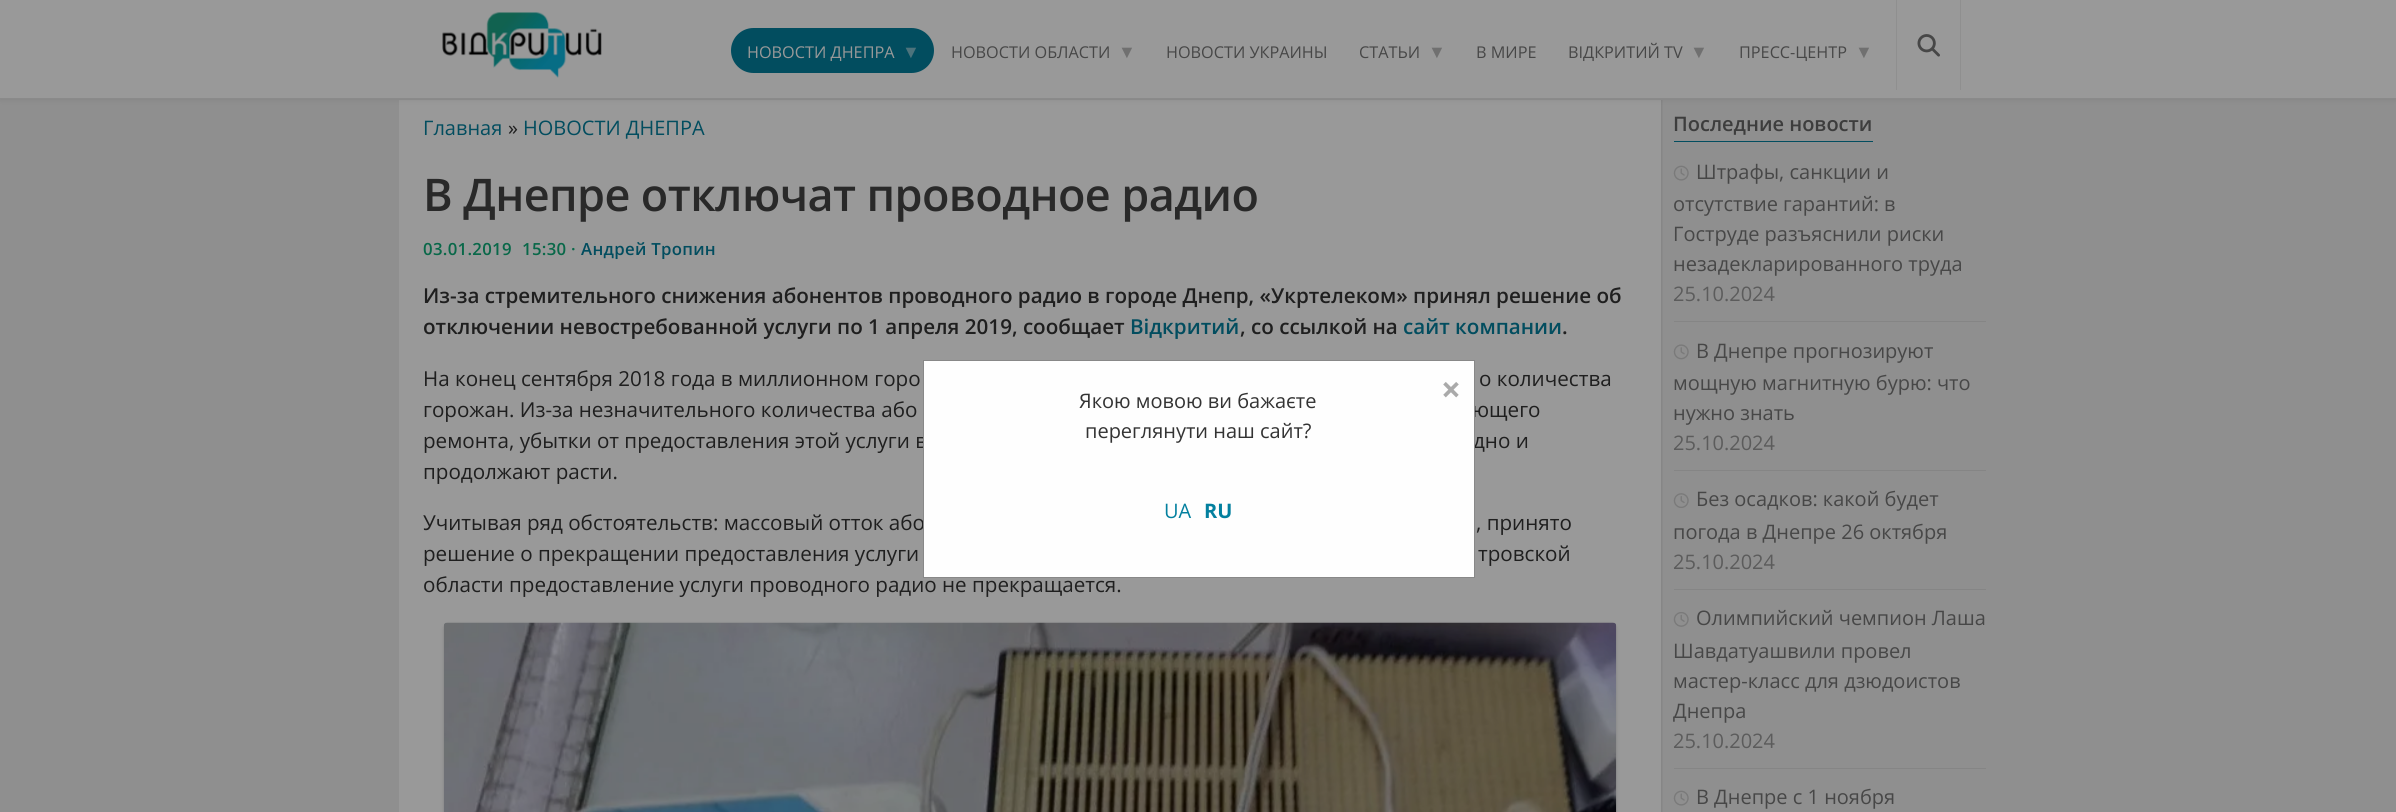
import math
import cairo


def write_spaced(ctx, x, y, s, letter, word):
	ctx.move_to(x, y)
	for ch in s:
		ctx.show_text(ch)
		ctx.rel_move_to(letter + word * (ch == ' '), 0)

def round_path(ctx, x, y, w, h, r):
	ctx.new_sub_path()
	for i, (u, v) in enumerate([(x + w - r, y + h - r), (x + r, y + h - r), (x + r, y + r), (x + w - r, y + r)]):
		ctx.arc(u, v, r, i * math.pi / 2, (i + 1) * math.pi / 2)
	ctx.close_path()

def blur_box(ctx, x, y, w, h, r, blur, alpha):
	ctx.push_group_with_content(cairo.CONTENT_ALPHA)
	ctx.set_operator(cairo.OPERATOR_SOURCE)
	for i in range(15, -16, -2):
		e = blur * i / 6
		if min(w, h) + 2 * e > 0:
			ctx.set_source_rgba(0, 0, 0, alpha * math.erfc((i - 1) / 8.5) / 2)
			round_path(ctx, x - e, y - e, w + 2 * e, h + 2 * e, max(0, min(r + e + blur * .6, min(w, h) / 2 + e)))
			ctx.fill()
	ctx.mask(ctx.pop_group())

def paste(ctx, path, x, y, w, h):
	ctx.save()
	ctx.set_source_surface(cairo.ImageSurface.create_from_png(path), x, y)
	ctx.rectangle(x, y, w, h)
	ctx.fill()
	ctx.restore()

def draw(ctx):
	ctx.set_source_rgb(0.561, 0.561, 0.561)
	ctx.paint()
	paste(ctx, 'media/3.png', 1661, 100, 2, 712)
	ctx.set_source_rgb(0.6, 0.6, 0.6)
	ctx.rectangle(399, 100, 1262, 712)
	ctx.fill()
	ctx.set_source_rgb(0, 0, 0)
	blur_box(ctx, 0, 0, 2396, 99, 0, 3, 0.1)
	ctx.set_source_rgb(0.6, 0.6, 0.6)
	ctx.rectangle(0, 0, 2396, 98)
	ctx.fill()
	ctx.set_source_rgb(0.541, 0.541, 0.541)
	ctx.rectangle(0, 98, 2396, 1)
	ctx.fill()
	paste(ctx, 'media/1.png', 442, 12, 160, 66)
	ctx.set_source_rgb(0.008, 0.302, 0.373)
	round_path(ctx, 731, 28, 203, 45, 22.5)
	ctx.fill()
	ctx.select_font_face('Open Sans')
	ctx.set_font_size(16.25)
	ctx.set_source_rgb(0.6, 0.6, 0.6)
	ctx.move_to(747, 58)
	ctx.show_text('НОВОСТИ ДНЕПРА')
	ctx.select_font_face('Liberation Serif')
	ctx.set_font_size(18)
	ctx.set_source_rgb(0.302, 0.451, 0.486)
	ctx.move_to(902, 58)
	ctx.show_text('▼')
	ctx.select_font_face('Open Sans')
	ctx.set_font_size(16.25)
	ctx.set_source_rgb(0.278, 0.278, 0.278)
	ctx.move_to(951, 58)
	ctx.show_text('НОВОСТИ ОБЛАСТИ')
	ctx.select_font_face('Liberation Serif')
	ctx.set_font_size(18)
	ctx.set_source_rgb(0.439, 0.439, 0.439)
	ctx.move_to(1118, 58)
	ctx.show_text('▼')
	ctx.select_font_face('Open Sans')
	ctx.set_font_size(16.25)
	ctx.set_source_rgb(0.278, 0.278, 0.278)
	ctx.move_to(1166, 58)
	ctx.show_text('НОВОСТИ УКРАИНЫ')
	ctx.move_to(1359, 58)
	ctx.show_text('СТАТЬИ')
	ctx.select_font_face('Liberation Serif')
	ctx.set_font_size(18)
	ctx.set_source_rgb(0.439, 0.439, 0.439)
	ctx.move_to(1428, 58)
	ctx.show_text('▼')
	ctx.select_font_face('Open Sans')
	ctx.set_font_size(16.25)
	ctx.set_source_rgb(0.278, 0.278, 0.278)
	ctx.move_to(1476, 58)
	ctx.show_text('В МИРЕ')
	ctx.move_to(1568, 58)
	ctx.show_text('ВІДКРИТИЙ TV')
	ctx.select_font_face('Liberation Serif')
	ctx.set_font_size(18)
	ctx.set_source_rgb(0.439, 0.439, 0.439)
	ctx.move_to(1690, 58)
	ctx.show_text('▼')
	ctx.select_font_face('Open Sans')
	ctx.set_font_size(16.25)
	ctx.set_source_rgb(0.278, 0.278, 0.278)
	ctx.move_to(1739, 58)
	ctx.show_text('ПРЕСС-ЦЕНТР')
	ctx.select_font_face('Liberation Serif')
	ctx.set_font_size(18)
	ctx.set_source_rgb(0.439, 0.439, 0.439)
	ctx.move_to(1855, 58)
	ctx.show_text('▼')
	ctx.set_source_rgb(0.561, 0.561, 0.561)
	ctx.rectangle(1960, 0, 1, 90)
	ctx.fill()
	ctx.rectangle(1896, 0, 1, 90)
	ctx.fill()
	paste(ctx, 'media/2.png', 1917, 34, 23, 23)
	ctx.select_font_face('Open Sans')
	ctx.set_font_size(20)
	ctx.set_source_rgb(0.008, 0.302, 0.373)
	ctx.move_to(423, 135)
	ctx.show_text('Главная')
	ctx.set_source_rgb(0.122, 0.122, 0.122)
	ctx.move_to(508, 135)
	ctx.show_text('»')
	ctx.set_source_rgb(0.008, 0.302, 0.373)
	ctx.move_to(523, 135)
	ctx.show_text('НОВОСТИ ДНЕПРА')
	ctx.select_font_face('Open Sans SemiBold')
	ctx.set_font_size(45)
	ctx.set_source_rgb(0.161, 0.161, 0.161)
	write_spaced(ctx, 423, 211, 'В Днепре отключат проводное радио', -0.6, 0)
	ctx.set_font_size(16.75)
	ctx.set_source_rgb(0.039, 0.408, 0.286)
	write_spaced(ctx, 423, 255, '03.01.2019', 0.3, 0)
	write_spaced(ctx, 522, 255, '15:30 ·', 0.3, 0)
	ctx.set_source_rgb(0.008, 0.302, 0.373)
	write_spaced(ctx, 581, 255, 'Андрей Тропин', 0.3, 0)
	ctx.set_font_size(20.62)
	ctx.set_source_rgb(0.122, 0.122, 0.122)
	ctx.move_to(423, 303)
	ctx.show_text('Из-за стремительного снижения абонентов проводного радио в городе Днепр, «Укртелеком» принял решение об')
	ctx.move_to(423, 334)
	ctx.show_text('отключении невостребованной услуги по 1 апреля 2019, сообщает')
	ctx.set_source_rgb(0.008, 0.302, 0.373)
	ctx.move_to(1130, 334)
	ctx.show_text('Відкритий')
	ctx.set_source_rgb(0.122, 0.122, 0.122)
	ctx.move_to(1240, 334)
	ctx.show_text(', со ссылкой на')
	ctx.set_source_rgb(0.008, 0.302, 0.373)
	ctx.move_to(1403, 334)
	ctx.show_text('сайт компании')
	ctx.set_source_rgb(0.122, 0.122, 0.122)
	ctx.move_to(1562, 334)
	ctx.show_text('.')
	ctx.select_font_face('Open Sans')
	for x, y, s in [
		(423, 386, 'На конец сентября 2018 года в миллионном горо'),
		(1479, 386, 'о количества'),
		(423, 417, 'горожан. Из-за незначительного количества або'),
		(1472, 417, 'ющего'),
		(423, 448, 'ремонта, убытки от предоставления этой услуги в'),
		(1473, 448, 'дно и'),
		(423, 479, 'продолжают расти.'),
		(423, 530, 'Учитывая ряд обстоятельств: массовый отток або'),
		(1476, 530, ', принято'),
		(423, 561, 'решение о прекращении предоставления услуги'),
		(1478, 561, 'тровской'),
		(423, 592, 'области предоставление услуги проводного радио не прекращается.'),
	]:
		ctx.move_to(x, y)
		ctx.show_text(s)
	ctx.set_source_rgb(0, 0, 0)
	blur_box(ctx, 444, 625, 1172, 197, 4, 2, 0.15)
	paste(ctx, 'media/4.png', 443, 622, 1174, 190)
	ctx.set_source_rgb(0.008, 0.302, 0.373)
	ctx.rectangle(1674, 141, 199, 1)
	ctx.fill()
	ctx.select_font_face('Open Sans SemiBold')
	ctx.set_font_size(20)
	ctx.set_source_rgb(0.239, 0.239, 0.239)
	ctx.move_to(1673, 131)
	ctx.show_text('Последние новости')
	ctx.set_source_rgb(0.522, 0.522, 0.522)
	ctx.rectangle(1674, 321, 312, 1)
	ctx.fill()
	paste(ctx, 'media/5.png', 1673, 165, 16, 16)
	ctx.select_font_face('Open Sans')
	ctx.set_source_rgb(0.278, 0.278, 0.278)
	for x, y, s in [
		(1696, 179, 'Штрафы, санкции и'),
		(1673, 211, 'отсутствие гарантий: в'),
		(1673, 241, 'Гоструде разъяснили риски'),
		(1673, 271, 'незадекларированного труда'),
	]:
		ctx.move_to(x, y)
		ctx.show_text(s)
	ctx.set_source_rgb(0.361, 0.361, 0.361)
	ctx.move_to(1673, 301)
	ctx.show_text('25.10.2024')
	ctx.set_source_rgb(0.522, 0.522, 0.522)
	ctx.rectangle(1674, 470, 312, 1)
	ctx.fill()
	paste(ctx, 'media/6.png', 1673, 344, 16, 16)
	ctx.set_source_rgb(0.278, 0.278, 0.278)
	for x, y, s in [
		(1696, 358, 'В Днепре прогнозируют'),
		(1673, 390, 'мощную магнитную бурю: что'),
		(1673, 420, 'нужно знать'),
	]:
		ctx.move_to(x, y)
		ctx.show_text(s)
	ctx.set_source_rgb(0.361, 0.361, 0.361)
	ctx.move_to(1673, 450)
	ctx.show_text('25.10.2024')
	ctx.set_source_rgb(0.522, 0.522, 0.522)
	ctx.rectangle(1674, 589, 312, 1)
	ctx.fill()
	paste(ctx, 'media/7.png', 1673, 493, 16, 15)
	ctx.set_source_rgb(0.278, 0.278, 0.278)
	ctx.move_to(1696, 506)
	ctx.show_text('Без осадков: какой будет')
	ctx.move_to(1673, 539)
	ctx.show_text('погода в Днепре 26 октября')
	ctx.set_source_rgb(0.361, 0.361, 0.361)
	ctx.move_to(1673, 569)
	ctx.show_text('25.10.2024')
	ctx.set_source_rgb(0.522, 0.522, 0.522)
	ctx.rectangle(1674, 768, 312, 1)
	ctx.fill()
	paste(ctx, 'media/8.png', 1673, 612, 16, 15)
	ctx.set_source_rgb(0.278, 0.278, 0.278)
	for x, y, s in [
		(1696, 625, 'Олимпийский чемпион Лаша'),
		(1673, 658, 'Шавдатуашвили провел'),
		(1673, 688, 'мастер-класс для дзюдоистов'),
		(1673, 718, 'Днепра'),
	]:
		ctx.move_to(x, y)
		ctx.show_text(s)
	ctx.set_source_rgb(0.361, 0.361, 0.361)
	ctx.move_to(1673, 748)
	ctx.show_text('25.10.2024')
	paste(ctx, 'media/5.png', 1673, 790, 16, 16)
	ctx.set_source_rgb(0.278, 0.278, 0.278)
	ctx.move_to(1696, 804)
	ctx.show_text('В Днепре с 1 ноября')
	ctx.set_source_rgb(0.996, 0.996, 0.996)
	ctx.rectangle(923.5, 360.5, 551, 217)
	ctx.fill_preserve()
	ctx.set_source_rgb(0.533, 0.533, 0.533)
	ctx.set_line_width(1)
	ctx.stroke()
	ctx.select_font_face('Open Sans', cairo.FONT_SLANT_NORMAL, cairo.FONT_WEIGHT_BOLD)
	ctx.set_font_size(35)
	ctx.set_source_rgb(0.667, 0.667, 0.667)
	ctx.move_to(1441, 402)
	ctx.show_text('×')
	ctx.select_font_face('Open Sans')
	ctx.set_font_size(20)
	ctx.set_source_rgb(0.2, 0.2, 0.2)
	ctx.move_to(1079, 408)
	ctx.show_text('Якою мовою ви бажаєте')
	ctx.move_to(1085, 438)
	ctx.show_text('переглянути наш сайт?')
	ctx.set_source_rgb(0.012, 0.502, 0.624)
	ctx.move_to(1164, 518)
	ctx.show_text('UA')
	ctx.select_font_face('Open Sans', cairo.FONT_SLANT_NORMAL, cairo.FONT_WEIGHT_BOLD)
	ctx.move_to(1204, 518)
	ctx.show_text('RU')


surface = cairo.ImageSurface(cairo.FORMAT_RGB24, 2396, 812)
ctx = cairo.Context(surface)
options = cairo.FontOptions()
options.set_hint_metrics(cairo.HINT_METRICS_OFF)
options.set_hint_style(cairo.HINT_STYLE_NONE)
ctx.set_font_options(options)
ctx.set_miter_limit(4)
draw(ctx)
surface.write_to_png('image.png')
